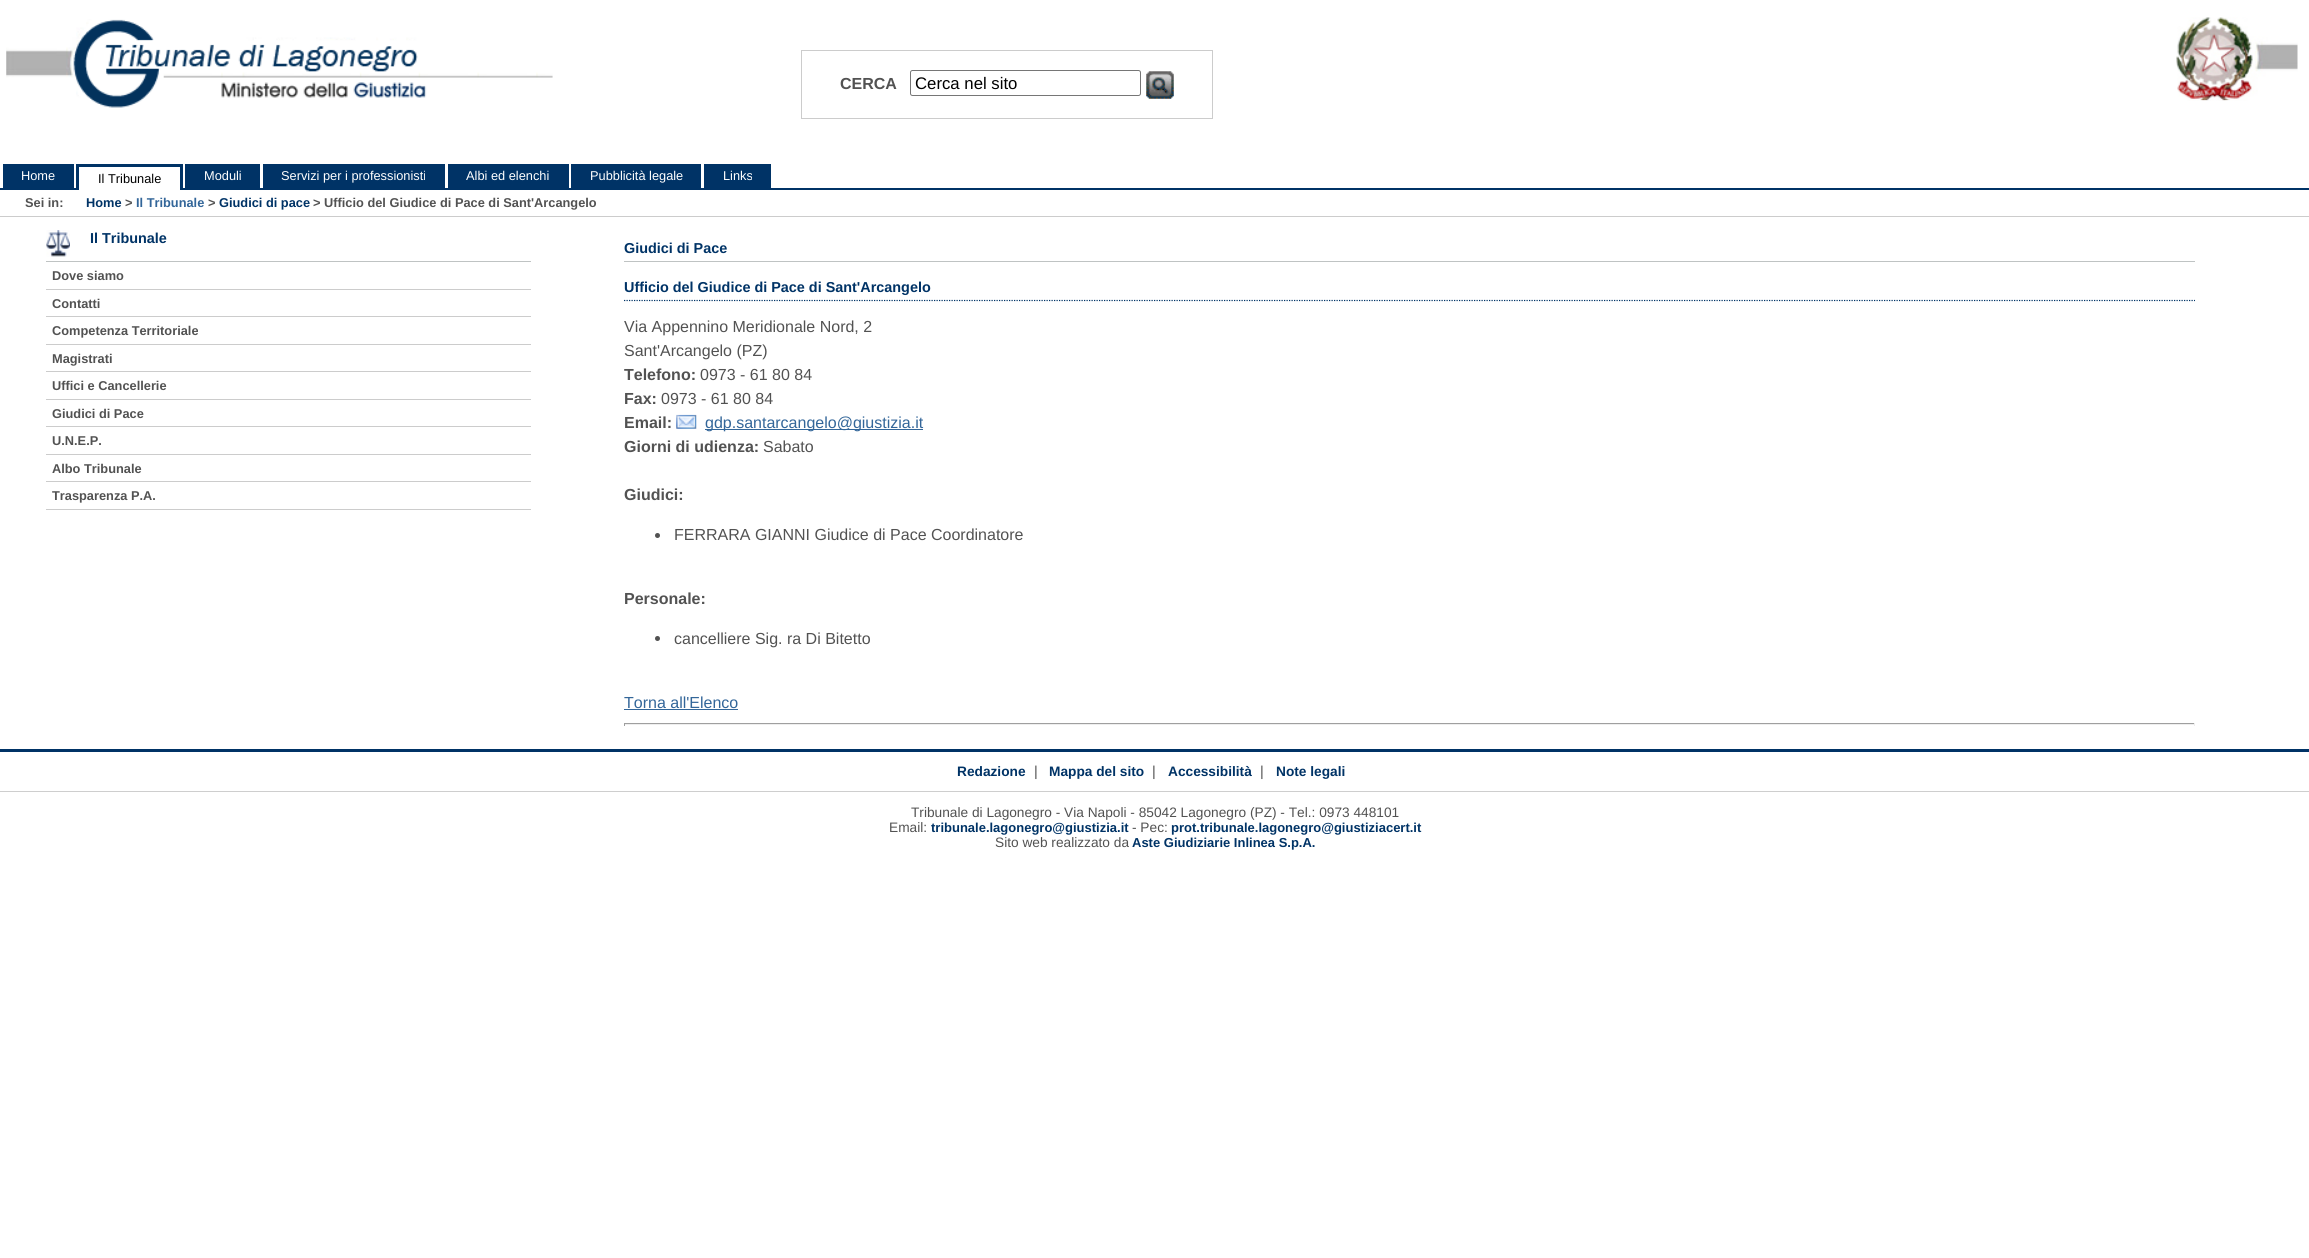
import math
import cairo


def round_path(ctx, x, y, w, h, r):
	ctx.new_sub_path()
	for i, (u, v) in enumerate([(x + w - r, y + h - r), (x + r, y + h - r), (x + r, y + r), (x + w - r, y + r)]):
		ctx.arc(u, v, r, i * math.pi / 2, (i + 1) * math.pi / 2)
	ctx.close_path()

def paste(ctx, path, x, y, w, h):
	ctx.save()
	ctx.set_source_surface(cairo.ImageSurface.create_from_png(path), x, y)
	ctx.rectangle(x, y, w, h)
	ctx.fill()
	ctx.restore()

def draw(ctx):
	ctx.set_source_rgb(1, 1, 1)
	ctx.paint()
	ctx.set_source_rgb(0, 0.2, 0.4)
	ctx.rectangle(0, 188, 2309, 2)
	ctx.fill()
	paste(ctx, 'media/1.png', 6, 19, 547, 89)
	ctx.rectangle(801.5, 50.5, 411, 68)
	ctx.set_source_rgb(0.8, 0.8, 0.8)
	ctx.set_line_width(1)
	ctx.stroke()
	ctx.select_font_face('Liberation Sans', cairo.FONT_SLANT_NORMAL, cairo.FONT_WEIGHT_BOLD)
	ctx.set_font_size(16)
	ctx.set_source_rgb(0.322, 0.322, 0.322)
	ctx.move_to(840, 89)
	ctx.show_text('CERCA')
	round_path(ctx, 910.5, 70.5, 230, 25, 2)
	ctx.set_source_rgb(0.463, 0.463, 0.463)
	ctx.stroke()
	ctx.select_font_face('Liberation Sans')
	ctx.set_font_size(16.75)
	ctx.set_source_rgb(0, 0, 0)
	ctx.move_to(915, 89)
	ctx.show_text('Cerca nel sito')
	paste(ctx, 'media/2.png', 1146, 71, 28, 28)
	paste(ctx, 'media/3.png', 2176, 17, 122, 84)
	ctx.set_source_rgb(0, 0.2, 0.4)
	ctx.rectangle(3, 164, 71, 24)
	ctx.fill()
	ctx.set_font_size(12.8)
	ctx.set_source_rgb(1, 1, 1)
	ctx.move_to(21, 180)
	ctx.show_text('Home')
	ctx.rectangle(79, 188, 101, 2)
	ctx.fill()
	ctx.set_source_rgb(0, 0.2, 0.4)
	ctx.rectangle(76, 164, 107, 3)
	ctx.rectangle(180, 164, 3, 26)
	ctx.rectangle(76, 164, 3, 26)
	ctx.fill()
	ctx.set_source_rgb(0, 0, 0)
	ctx.move_to(98, 183)
	ctx.show_text('Il Tribunale')
	ctx.set_source_rgb(0, 0.2, 0.4)
	ctx.rectangle(185, 164, 75, 24)
	ctx.fill()
	ctx.set_source_rgb(1, 1, 1)
	ctx.move_to(204, 180)
	ctx.show_text('Moduli')
	ctx.set_source_rgb(0, 0.2, 0.4)
	ctx.rectangle(263, 164, 182, 24)
	ctx.fill()
	ctx.set_source_rgb(1, 1, 1)
	ctx.move_to(281, 180)
	ctx.show_text('Servizi per i professionisti')
	ctx.set_source_rgb(0, 0.2, 0.4)
	ctx.rectangle(448, 164, 121, 24)
	ctx.fill()
	ctx.set_source_rgb(1, 1, 1)
	ctx.move_to(466, 180)
	ctx.show_text('Albi ed elenchi')
	ctx.set_source_rgb(0, 0.2, 0.4)
	ctx.rectangle(571, 164, 130, 24)
	ctx.fill()
	ctx.set_source_rgb(1, 1, 1)
	ctx.move_to(590, 180)
	ctx.show_text('Pubblicità legale')
	ctx.set_source_rgb(0, 0.2, 0.4)
	ctx.rectangle(704, 164, 67, 24)
	ctx.fill()
	ctx.set_source_rgb(1, 1, 1)
	ctx.move_to(723, 180)
	ctx.show_text('Links')
	ctx.set_source_rgb(0.8, 0.8, 0.8)
	ctx.rectangle(0, 216, 2309, 1)
	ctx.fill()
	ctx.select_font_face('Liberation Sans', cairo.FONT_SLANT_NORMAL, cairo.FONT_WEIGHT_BOLD)
	ctx.set_source_rgb(0.322, 0.322, 0.322)
	ctx.move_to(25, 207)
	ctx.show_text('Sei in:')
	ctx.set_source_rgb(0, 0.2, 0.4)
	ctx.move_to(86, 207)
	ctx.show_text('Home')
	ctx.set_source_rgb(0.322, 0.322, 0.322)
	ctx.move_to(125, 207)
	ctx.show_text('>')
	ctx.set_source_rgb(0.2, 0.4, 0.6)
	ctx.move_to(136, 207)
	ctx.show_text('Il Tribunale')
	ctx.set_source_rgb(0.322, 0.322, 0.322)
	ctx.move_to(208, 207)
	ctx.show_text('>')
	ctx.set_source_rgb(0, 0.2, 0.4)
	ctx.move_to(219, 207)
	ctx.show_text('Giudici di pace')
	ctx.set_source_rgb(0.322, 0.322, 0.322)
	ctx.move_to(313, 207)
	ctx.show_text('> Ufficio del Giudice di Pace di Sant\'Arcangelo')
	paste(ctx, 'media/4.png', 46, 230, 24, 27)
	ctx.set_source_rgb(0.749, 0.765, 0.765)
	ctx.rectangle(46, 261, 485, 1)
	ctx.fill()
	ctx.set_font_size(14.4)
	ctx.set_source_rgb(0, 0.2, 0.4)
	ctx.move_to(90, 243)
	ctx.show_text('Il Tribunale')
	ctx.set_source_rgb(0.8, 0.8, 0.8)
	ctx.rectangle(46, 289, 485, 1)
	ctx.fill()
	ctx.set_font_size(12.8)
	ctx.set_source_rgb(0.322, 0.322, 0.322)
	ctx.move_to(52, 280)
	ctx.show_text('Dove siamo')
	ctx.set_source_rgb(0.8, 0.8, 0.8)
	ctx.rectangle(46, 316, 485, 1)
	ctx.fill()
	ctx.set_source_rgb(0.322, 0.322, 0.322)
	ctx.move_to(52, 308)
	ctx.show_text('Contatti')
	ctx.set_source_rgb(0.8, 0.8, 0.8)
	ctx.rectangle(46, 344, 485, 1)
	ctx.fill()
	ctx.set_source_rgb(0.322, 0.322, 0.322)
	ctx.move_to(52, 335)
	ctx.show_text('Competenza Territoriale')
	ctx.set_source_rgb(0.8, 0.8, 0.8)
	ctx.rectangle(46, 371, 485, 1)
	ctx.fill()
	ctx.set_source_rgb(0.322, 0.322, 0.322)
	ctx.move_to(52, 363)
	ctx.show_text('Magistrati')
	ctx.set_source_rgb(0.8, 0.8, 0.8)
	ctx.rectangle(46, 399, 485, 1)
	ctx.fill()
	ctx.set_source_rgb(0.322, 0.322, 0.322)
	ctx.move_to(52, 390)
	ctx.show_text('Uffici e Cancellerie')
	ctx.set_source_rgb(0.8, 0.8, 0.8)
	ctx.rectangle(46, 426, 485, 1)
	ctx.fill()
	ctx.set_source_rgb(0.322, 0.322, 0.322)
	ctx.move_to(52, 418)
	ctx.show_text('Giudici di Pace')
	ctx.set_source_rgb(0.8, 0.8, 0.8)
	ctx.rectangle(46, 454, 485, 1)
	ctx.fill()
	ctx.set_source_rgb(0.322, 0.322, 0.322)
	ctx.move_to(52, 445)
	ctx.show_text('U.N.E.P.')
	ctx.set_source_rgb(0.8, 0.8, 0.8)
	ctx.rectangle(46, 481, 485, 1)
	ctx.fill()
	ctx.set_source_rgb(0.322, 0.322, 0.322)
	ctx.move_to(52, 473)
	ctx.show_text('Albo Tribunale')
	ctx.set_source_rgb(0.8, 0.8, 0.8)
	ctx.rectangle(46, 509, 485, 1)
	ctx.fill()
	ctx.set_source_rgb(0.322, 0.322, 0.322)
	ctx.move_to(52, 500)
	ctx.show_text('Trasparenza P.A.')
	ctx.set_source_rgb(0.749, 0.765, 0.765)
	ctx.rectangle(624, 261, 1571, 1)
	ctx.fill()
	ctx.set_font_size(14.4)
	ctx.set_source_rgb(0, 0.2, 0.4)
	ctx.move_to(624, 253)
	ctx.show_text('Giudici di Pace')
	ctx.new_path()
	ctx.move_to(624, 300.5)
	ctx.line_to(2195, 300.5)
	ctx.set_line_width(1.2)
	ctx.set_dash([1.25, 1.25])
	ctx.stroke()
	ctx.move_to(624, 292)
	ctx.show_text('Ufficio del Giudice di Pace di Sant\'Arcangelo')
	ctx.select_font_face('Liberation Sans')
	ctx.set_font_size(16)
	ctx.set_source_rgb(0.322, 0.322, 0.322)
	ctx.move_to(624, 332)
	ctx.show_text('Via Appennino Meridionale Nord, 2')
	ctx.move_to(624, 356)
	ctx.show_text('Sant\'Arcangelo (PZ)')
	ctx.select_font_face('Liberation Sans', cairo.FONT_SLANT_NORMAL, cairo.FONT_WEIGHT_BOLD)
	ctx.move_to(624, 380)
	ctx.show_text('Telefono:')
	ctx.select_font_face('Liberation Sans')
	ctx.move_to(700, 380)
	ctx.show_text('0973 - 61 80 84')
	ctx.select_font_face('Liberation Sans', cairo.FONT_SLANT_NORMAL, cairo.FONT_WEIGHT_BOLD)
	ctx.move_to(624, 404)
	ctx.show_text('Fax:')
	ctx.select_font_face('Liberation Sans')
	ctx.move_to(661, 404)
	ctx.show_text('0973 - 61 80 84')
	ctx.select_font_face('Liberation Sans', cairo.FONT_SLANT_NORMAL, cairo.FONT_WEIGHT_BOLD)
	ctx.move_to(624, 428)
	ctx.show_text('Email:')
	paste(ctx, 'media/5.png', 676, 414, 21, 15)
	ctx.set_source_rgb(0.2, 0.4, 0.6)
	ctx.rectangle(705, 429, 218, 1)
	ctx.fill()
	ctx.select_font_face('Liberation Sans')
	ctx.move_to(705, 428)
	ctx.show_text('gdp.santarcangelo@giustizia.it')
	ctx.select_font_face('Liberation Sans', cairo.FONT_SLANT_NORMAL, cairo.FONT_WEIGHT_BOLD)
	ctx.set_source_rgb(0.322, 0.322, 0.322)
	ctx.move_to(624, 452)
	ctx.show_text('Giorni di udienza:')
	ctx.select_font_face('Liberation Sans')
	ctx.move_to(763, 452)
	ctx.show_text('Sabato')
	ctx.select_font_face('Liberation Sans', cairo.FONT_SLANT_NORMAL, cairo.FONT_WEIGHT_BOLD)
	ctx.move_to(624, 500)
	ctx.show_text('Giudici:')
	ctx.new_path()
	ctx.arc(657.5, 535.5, 2.5, 0, 2 * math.pi)
	ctx.fill()
	ctx.select_font_face('Liberation Sans')
	ctx.move_to(674, 540)
	ctx.show_text('FERRARA GIANNI Giudice di Pace Coordinatore')
	ctx.select_font_face('Liberation Sans', cairo.FONT_SLANT_NORMAL, cairo.FONT_WEIGHT_BOLD)
	ctx.move_to(624, 604)
	ctx.show_text('Personale:')
	ctx.new_path()
	ctx.arc(657.5, 638.5, 2.5, 0, 2 * math.pi)
	ctx.fill()
	ctx.select_font_face('Liberation Sans')
	ctx.move_to(674, 644)
	ctx.show_text('cancelliere Sig. ra Di Bitetto')
	ctx.set_source_rgb(0.2, 0.4, 0.6)
	ctx.move_to(624, 708)
	ctx.show_text('Torna all\'Elenco')
	ctx.rectangle(624, 709, 114, 1)
	ctx.fill()
	ctx.set_source_rgb(0.624, 0.624, 0.624)
	ctx.rectangle(624, 723, 1571, 1)
	ctx.fill()
	ctx.set_source_rgb(0.933, 0.933, 0.933)
	ctx.rectangle(2194, 723, 1, 3)
	ctx.rectangle(624, 724, 1571, 1)
	ctx.fill()
	ctx.set_source_rgb(0.624, 0.624, 0.624)
	ctx.rectangle(624, 723, 1, 3)
	ctx.fill()
	ctx.set_source_rgb(0, 0.2, 0.4)
	ctx.rectangle(0, 749, 2309, 3)
	ctx.fill()
	ctx.select_font_face('Liberation Sans', cairo.FONT_SLANT_NORMAL, cairo.FONT_WEIGHT_BOLD)
	ctx.set_font_size(13.7)
	ctx.move_to(957, 776)
	ctx.show_text('Redazione')
	ctx.select_font_face('Liberation Sans')
	ctx.set_font_size(14.4)
	ctx.set_source_rgb(0.322, 0.322, 0.322)
	ctx.move_to(1034, 776)
	ctx.show_text('|')
	ctx.select_font_face('Liberation Sans', cairo.FONT_SLANT_NORMAL, cairo.FONT_WEIGHT_BOLD)
	ctx.set_font_size(13.7)
	ctx.set_source_rgb(0, 0.2, 0.4)
	ctx.move_to(1049, 776)
	ctx.show_text('Mappa del sito')
	ctx.select_font_face('Liberation Sans')
	ctx.set_font_size(14.4)
	ctx.set_source_rgb(0.322, 0.322, 0.322)
	ctx.move_to(1152, 776)
	ctx.show_text('|')
	ctx.select_font_face('Liberation Sans', cairo.FONT_SLANT_NORMAL, cairo.FONT_WEIGHT_BOLD)
	ctx.set_font_size(13.7)
	ctx.set_source_rgb(0, 0.2, 0.4)
	ctx.move_to(1168, 776)
	ctx.show_text('Accessibilità')
	ctx.select_font_face('Liberation Sans')
	ctx.set_font_size(14.4)
	ctx.set_source_rgb(0.322, 0.322, 0.322)
	ctx.move_to(1260, 776)
	ctx.show_text('|')
	ctx.select_font_face('Liberation Sans', cairo.FONT_SLANT_NORMAL, cairo.FONT_WEIGHT_BOLD)
	ctx.set_font_size(13.7)
	ctx.set_source_rgb(0, 0.2, 0.4)
	ctx.move_to(1276, 776)
	ctx.show_text('Note legali')
	ctx.set_source_rgb(0.808, 0.808, 0.808)
	ctx.rectangle(0, 791, 2309, 1)
	ctx.fill()
	ctx.select_font_face('Liberation Sans')
	ctx.set_source_rgb(0.322, 0.322, 0.322)
	ctx.move_to(911, 817)
	ctx.show_text('Tribunale di Lagonegro - Via Napoli - 85042 Lagonegro (PZ) - Tel.: 0973 448101')
	ctx.move_to(889, 832)
	ctx.show_text('Email:')
	ctx.select_font_face('Liberation Sans', cairo.FONT_SLANT_NORMAL, cairo.FONT_WEIGHT_BOLD)
	ctx.set_font_size(13)
	ctx.set_source_rgb(0, 0.2, 0.4)
	ctx.move_to(931, 832)
	ctx.show_text('tribunale.lagonegro@giustizia.it')
	ctx.select_font_face('Liberation Sans')
	ctx.set_font_size(13.7)
	ctx.set_source_rgb(0.322, 0.322, 0.322)
	ctx.move_to(1132, 832)
	ctx.show_text('- Pec:')
	ctx.select_font_face('Liberation Sans', cairo.FONT_SLANT_NORMAL, cairo.FONT_WEIGHT_BOLD)
	ctx.set_font_size(13)
	ctx.set_source_rgb(0, 0.2, 0.4)
	ctx.move_to(1171, 832)
	ctx.show_text('prot.tribunale.lagonegro@giustiziacert.it')
	ctx.select_font_face('Liberation Sans')
	ctx.set_font_size(13.7)
	ctx.set_source_rgb(0.322, 0.322, 0.322)
	ctx.move_to(995, 847)
	ctx.show_text('Sito web realizzato da')
	ctx.select_font_face('Liberation Sans', cairo.FONT_SLANT_NORMAL, cairo.FONT_WEIGHT_BOLD)
	ctx.set_font_size(13)
	ctx.set_source_rgb(0, 0.2, 0.4)
	ctx.move_to(1132, 847)
	ctx.show_text('Aste Giudiziarie Inlinea S.p.A.')


surface = cairo.ImageSurface(cairo.FORMAT_RGB24, 2309, 1258)
ctx = cairo.Context(surface)
options = cairo.FontOptions()
options.set_hint_metrics(cairo.HINT_METRICS_OFF)
options.set_hint_style(cairo.HINT_STYLE_NONE)
ctx.set_font_options(options)
ctx.set_miter_limit(4)
draw(ctx)
surface.write_to_png('image.png')
